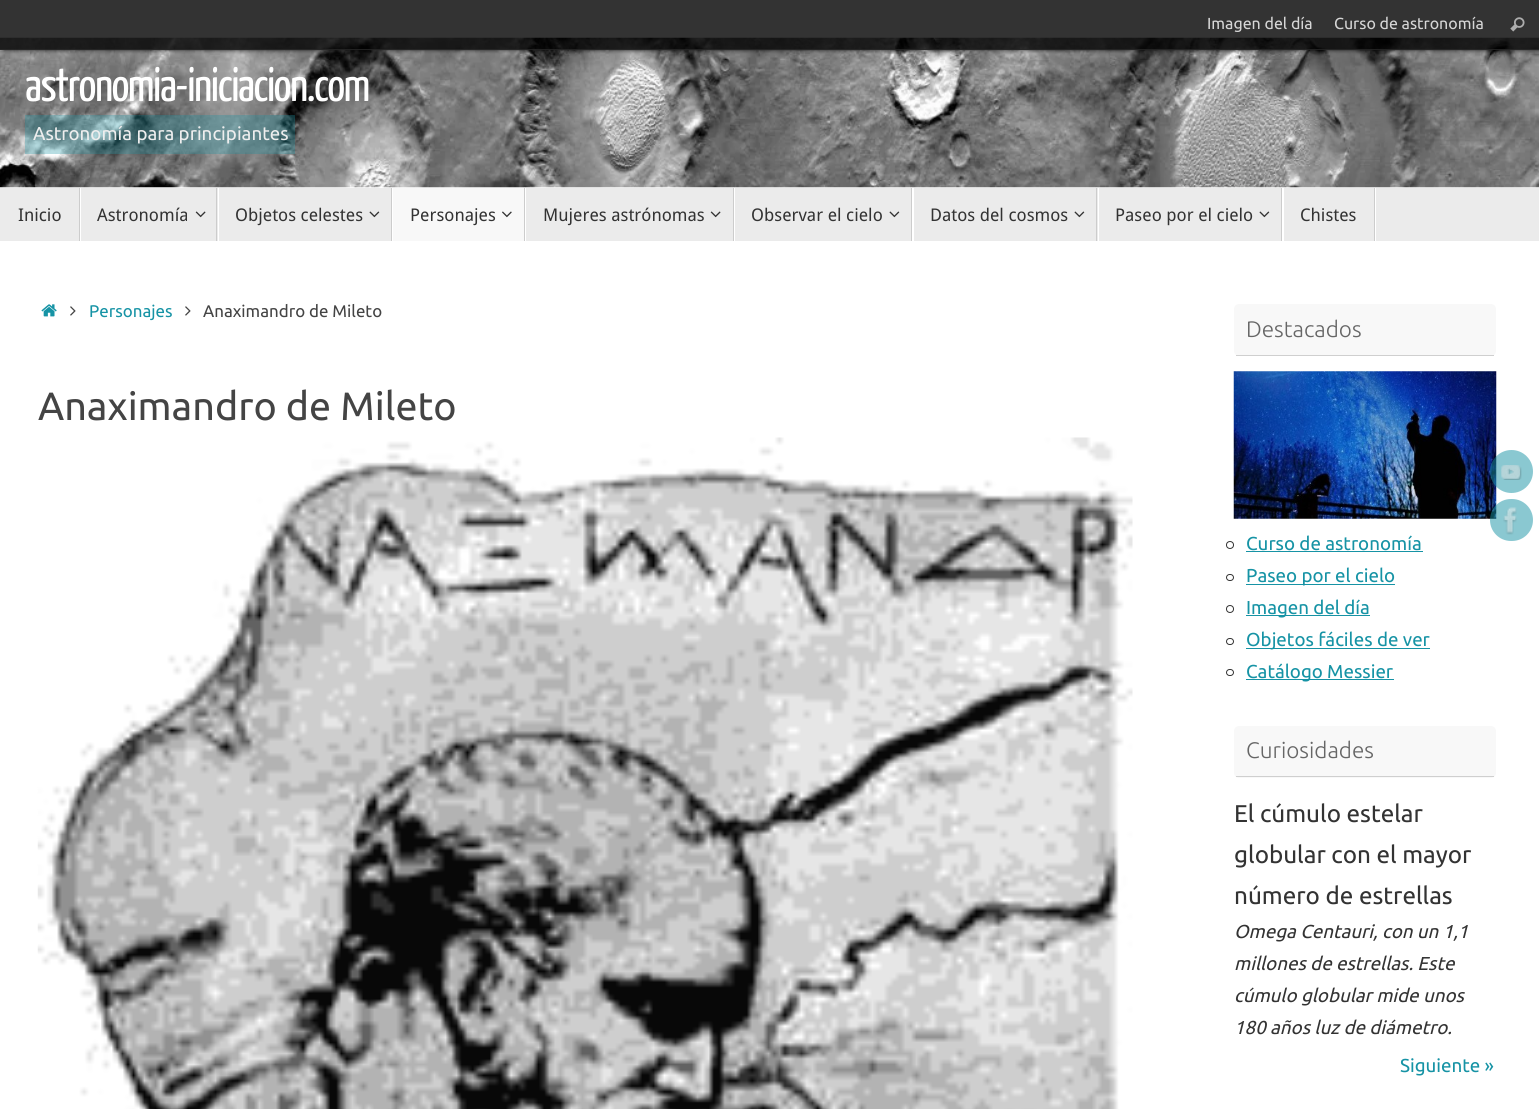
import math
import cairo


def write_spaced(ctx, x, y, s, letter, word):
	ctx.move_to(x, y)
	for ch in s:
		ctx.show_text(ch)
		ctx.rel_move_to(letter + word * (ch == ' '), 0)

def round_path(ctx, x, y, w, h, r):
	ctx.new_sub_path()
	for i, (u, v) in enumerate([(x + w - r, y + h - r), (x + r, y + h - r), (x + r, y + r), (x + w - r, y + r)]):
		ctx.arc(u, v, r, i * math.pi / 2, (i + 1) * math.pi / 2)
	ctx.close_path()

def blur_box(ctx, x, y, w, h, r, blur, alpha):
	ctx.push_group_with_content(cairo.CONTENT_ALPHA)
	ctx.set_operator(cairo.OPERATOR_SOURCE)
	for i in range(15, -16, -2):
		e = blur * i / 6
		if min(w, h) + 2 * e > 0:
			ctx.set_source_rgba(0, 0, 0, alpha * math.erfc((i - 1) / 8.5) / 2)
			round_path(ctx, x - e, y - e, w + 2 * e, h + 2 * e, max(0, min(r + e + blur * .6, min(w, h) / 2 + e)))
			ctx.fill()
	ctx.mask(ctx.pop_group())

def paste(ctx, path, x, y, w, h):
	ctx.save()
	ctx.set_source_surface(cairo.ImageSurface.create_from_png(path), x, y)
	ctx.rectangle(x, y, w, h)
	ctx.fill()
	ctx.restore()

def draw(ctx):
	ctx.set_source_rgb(1, 1, 1)
	ctx.paint()
	paste(ctx, 'media/2.png', 0, 37, 1539, 151)
	ctx.save()
	ctx.rectangle(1, 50, 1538, 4)
	ctx.clip()
	ctx.set_source_rgb(0, 0, 0)
	blur_box(ctx, 4, 0, 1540, 50, 0, 2, 0.8)
	ctx.restore()
	ctx.set_source_rgba(0, 0, 0, 0.8)
	ctx.rectangle(0, 0, 1539, 50)
	ctx.fill()
	ctx.set_source_rgba(0.157, 0.157, 0.157, 0.8)
	ctx.rectangle(0, 49, 1539, 1)
	ctx.fill()
	ctx.select_font_face('Ubuntu')
	ctx.set_font_size(16)
	ctx.set_source_rgb(0.839, 0.839, 0.839)
	ctx.move_to(1207, 29)
	ctx.show_text('Imagen del día')
	ctx.move_to(1334, 29)
	ctx.show_text('Curso de astronomía')
	paste(ctx, 'media/1.png', 1510, 17, 15, 15)
	ctx.select_font_face('Yanone Kaffeesatz')
	ctx.set_font_size(47.5)
	ctx.set_source_rgb(1, 1, 1)
	write_spaced(ctx, 25, 101, 'astronomia-iniciacion.com', -1.4, 0)
	ctx.set_source_rgba(0.086, 0.576, 0.647, 0.3)
	ctx.rectangle(25, 115, 270, 39)
	ctx.fill()
	ctx.select_font_face('Ubuntu')
	ctx.set_font_size(18.75)
	ctx.set_source_rgb(0.933, 0.933, 0.933)
	ctx.move_to(33, 140)
	ctx.show_text('Astronomía para principiantes')
	ctx.set_source_rgb(0.918, 0.918, 0.918)
	ctx.rectangle(0, 188, 1539, 53)
	ctx.fill()
	ctx.set_source_rgb(1, 1, 1)
	ctx.rectangle(80, 188, 1, 53)
	ctx.fill()
	ctx.set_source_rgb(0.8, 0.8, 0.8)
	ctx.rectangle(79, 188, 1, 53)
	ctx.fill()
	ctx.select_font_face('Droid Sans')
	ctx.set_font_size(17.5)
	ctx.set_source_rgb(0.2, 0.2, 0.2)
	ctx.move_to(18, 221)
	ctx.show_text('Inicio')
	ctx.set_source_rgb(1, 1, 1)
	ctx.rectangle(218, 188, 1, 53)
	ctx.fill()
	ctx.set_source_rgb(0.8, 0.8, 0.8)
	ctx.rectangle(216, 188, 1, 53)
	ctx.fill()
	ctx.set_source_rgb(0.2, 0.2, 0.2)
	ctx.move_to(97, 221)
	ctx.show_text('Astronomía')
	paste(ctx, 'media/3.png', 195, 211, 11, 7)
	ctx.set_source_rgb(1, 1, 1)
	ctx.rectangle(392, 188, 1, 53)
	ctx.fill()
	ctx.set_source_rgb(0.8, 0.8, 0.8)
	ctx.rectangle(391, 188, 1, 53)
	ctx.fill()
	ctx.set_source_rgb(0.2, 0.2, 0.2)
	ctx.move_to(235, 221)
	ctx.show_text('Objetos celestes')
	paste(ctx, 'media/4.png', 369, 211, 11, 7)
	ctx.set_source_rgb(0.969, 0.969, 0.969)
	ctx.rectangle(393, 188, 131, 53)
	ctx.fill()
	ctx.set_source_rgb(1, 1, 1)
	ctx.rectangle(525, 188, 1, 53)
	ctx.fill()
	ctx.set_source_rgb(0.8, 0.8, 0.8)
	ctx.rectangle(524, 188, 1, 53)
	ctx.fill()
	ctx.set_source_rgb(0.2, 0.2, 0.2)
	ctx.move_to(410, 221)
	ctx.show_text('Personajes')
	paste(ctx, 'media/5.png', 502, 211, 10, 7)
	ctx.set_source_rgb(1, 1, 1)
	ctx.rectangle(734, 188, 1, 53)
	ctx.fill()
	ctx.set_source_rgb(0.8, 0.8, 0.8)
	ctx.rectangle(733, 188, 1, 53)
	ctx.fill()
	ctx.set_source_rgb(0.2, 0.2, 0.2)
	ctx.move_to(543, 221)
	ctx.show_text('Mujeres astrónomas')
	paste(ctx, 'media/3.png', 710, 211, 11, 7)
	ctx.set_source_rgb(1, 1, 1)
	ctx.rectangle(912, 188, 2, 53)
	ctx.fill()
	ctx.set_source_rgb(0.8, 0.8, 0.8)
	ctx.rectangle(911, 188, 1, 53)
	ctx.fill()
	ctx.set_source_rgb(0.2, 0.2, 0.2)
	ctx.move_to(751, 221)
	ctx.show_text('Observar el cielo')
	paste(ctx, 'media/4.png', 889, 211, 11, 7)
	ctx.set_source_rgb(1, 1, 1)
	ctx.rectangle(1098, 188, 1, 53)
	ctx.fill()
	ctx.set_source_rgb(0.8, 0.8, 0.8)
	ctx.rectangle(1096, 188, 1, 53)
	ctx.fill()
	ctx.set_source_rgb(0.2, 0.2, 0.2)
	ctx.move_to(930, 221)
	ctx.show_text('Datos del cosmos')
	paste(ctx, 'media/4.png', 1074, 211, 11, 7)
	ctx.set_source_rgb(1, 1, 1)
	ctx.rectangle(1282, 188, 2, 53)
	ctx.fill()
	ctx.set_source_rgb(0.8, 0.8, 0.8)
	ctx.rectangle(1281, 188, 1, 53)
	ctx.fill()
	ctx.set_source_rgb(0.2, 0.2, 0.2)
	ctx.move_to(1115, 221)
	ctx.show_text('Paseo por el cielo')
	paste(ctx, 'media/4.png', 1259, 211, 11, 7)
	ctx.set_source_rgb(1, 1, 1)
	ctx.rectangle(1375, 188, 1, 53)
	ctx.fill()
	ctx.set_source_rgb(0.8, 0.8, 0.8)
	ctx.rectangle(1374, 188, 1, 53)
	ctx.fill()
	ctx.set_source_rgb(0.2, 0.2, 0.2)
	ctx.move_to(1300, 221)
	ctx.show_text('Chistes')
	paste(ctx, 'media/6.png', 41, 304, 16, 13)
	paste(ctx, 'media/7.png', 70, 306, 6, 10)
	ctx.select_font_face('Ubuntu')
	ctx.set_font_size(16.9)
	ctx.set_source_rgb(0.086, 0.576, 0.647)
	ctx.move_to(89, 317)
	ctx.show_text('Personajes')
	paste(ctx, 'media/7.png', 185, 306, 6, 10)
	ctx.set_source_rgb(0.267, 0.267, 0.267)
	ctx.move_to(203, 317)
	ctx.show_text('Anaximandro de Mileto')
	ctx.set_font_size(39.5)
	ctx.move_to(38, 420)
	ctx.show_text('Anaximandro de Mileto')
	paste(ctx, 'media/8.png', 37, 437, 1096, 672)
	ctx.set_source_rgb(0.969, 0.969, 0.969)
	round_path(ctx, 1234, 304, 262, 52, 5)
	ctx.fill()
	ctx.set_source_rgb(0.812, 0.812, 0.812)
	ctx.rectangle(1236, 355, 258, 1)
	ctx.fill()
	ctx.select_font_face('Ubuntu Light')
	ctx.set_font_size(22.5)
	ctx.set_source_rgb(0.4, 0.4, 0.4)
	ctx.move_to(1246, 337)
	ctx.show_text('Destacados')
	paste(ctx, 'media/9.png', 1233, 371, 264, 148)
	ctx.arc(1230, 545, 3.5, 0, 2 * math.pi)
	ctx.set_source_rgb(0.2, 0.2, 0.2)
	ctx.set_line_width(1)
	ctx.stroke()
	ctx.select_font_face('Ubuntu')
	ctx.set_font_size(18.75)
	ctx.set_source_rgb(0.086, 0.576, 0.647)
	ctx.move_to(1246, 550)
	ctx.show_text('Curso de astronomía')
	ctx.rectangle(1246, 551, 177, 1)
	ctx.fill()
	round_path(ctx, 1226.5, 574.5, 7, 6, 3)
	ctx.set_source_rgb(0.2, 0.2, 0.2)
	ctx.stroke()
	ctx.set_source_rgb(0.086, 0.576, 0.647)
	ctx.rectangle(1246, 584, 149, 1)
	ctx.fill()
	ctx.move_to(1246, 582)
	ctx.show_text('Paseo por el cielo')
	ctx.new_path()
	ctx.arc(1230, 609, 3.5, 0, 2 * math.pi)
	ctx.set_source_rgb(0.2, 0.2, 0.2)
	ctx.stroke()
	ctx.set_source_rgb(0.086, 0.576, 0.647)
	ctx.rectangle(1246, 615, 124, 1)
	ctx.fill()
	ctx.move_to(1246, 614)
	ctx.show_text('Imagen del día')
	round_path(ctx, 1226.5, 638.5, 7, 6, 3)
	ctx.set_source_rgb(0.2, 0.2, 0.2)
	ctx.stroke()
	ctx.set_source_rgb(0.086, 0.576, 0.647)
	ctx.rectangle(1246, 648, 184, 1)
	ctx.fill()
	ctx.move_to(1246, 646)
	ctx.show_text('Objetos fáciles de ver')
	round_path(ctx, 1226.5, 669.5, 7, 6, 3)
	ctx.set_source_rgb(0.2, 0.2, 0.2)
	ctx.stroke()
	ctx.set_source_rgb(0.086, 0.576, 0.647)
	ctx.rectangle(1246, 679, 148, 1)
	ctx.fill()
	ctx.move_to(1246, 678)
	ctx.show_text('Catálogo Messier')
	ctx.set_source_rgb(0.969, 0.969, 0.969)
	round_path(ctx, 1234, 726, 262, 52, 5)
	ctx.fill()
	ctx.set_source_rgb(0.812, 0.812, 0.812)
	ctx.rectangle(1236, 776, 258, 1)
	ctx.fill()
	ctx.select_font_face('Ubuntu Light')
	ctx.set_font_size(22.5)
	ctx.set_source_rgb(0.4, 0.4, 0.4)
	ctx.move_to(1246, 758)
	ctx.show_text('Curiosidades')
	ctx.select_font_face('Ubuntu')
	ctx.set_font_size(24.25)
	ctx.set_source_rgb(0.2, 0.2, 0.2)
	for x, y, s in [
		(1234, 822, 'El cúmulo estelar'),
		(1234, 863, 'globular con el mayor'),
		(1234, 904, 'número de estrellas'),
	]:
		ctx.move_to(x, y)
		ctx.show_text(s)
	ctx.select_font_face('Ubuntu', cairo.FONT_SLANT_ITALIC)
	ctx.set_font_size(18.75)
	for x, y, s in [
		(1234, 938, 'Omega Centauri, con un 1,1'),
		(1234, 970, 'millones de estrellas. Este'),
		(1234, 1002, 'cúmulo globular mide unos'),
		(1234, 1034, '180 años luz de diámetro.'),
	]:
		ctx.move_to(x, y)
		ctx.show_text(s)
	ctx.select_font_face('Ubuntu')
	ctx.set_source_rgb(0.086, 0.576, 0.647)
	ctx.move_to(1400, 1072)
	ctx.show_text('Siguiente »')
	ctx.set_source_rgba(0.086, 0.576, 0.647, 0.5)
	ctx.new_path()
	ctx.arc(1511.5, 471.5, 21.5, 0, 2 * math.pi)
	ctx.fill()
	paste(ctx, 'media/10.png', 1501, 465, 21, 15)
	round_path(ctx, 1490, 499, 43, 42, 21)
	ctx.fill()
	paste(ctx, 'media/11.png', 1503, 507, 14, 28)


surface = cairo.ImageSurface(cairo.FORMAT_RGB24, 1539, 1109)
ctx = cairo.Context(surface)
options = cairo.FontOptions()
options.set_hint_metrics(cairo.HINT_METRICS_OFF)
options.set_hint_style(cairo.HINT_STYLE_NONE)
ctx.set_font_options(options)
ctx.set_miter_limit(4)
draw(ctx)
surface.write_to_png('image.png')
